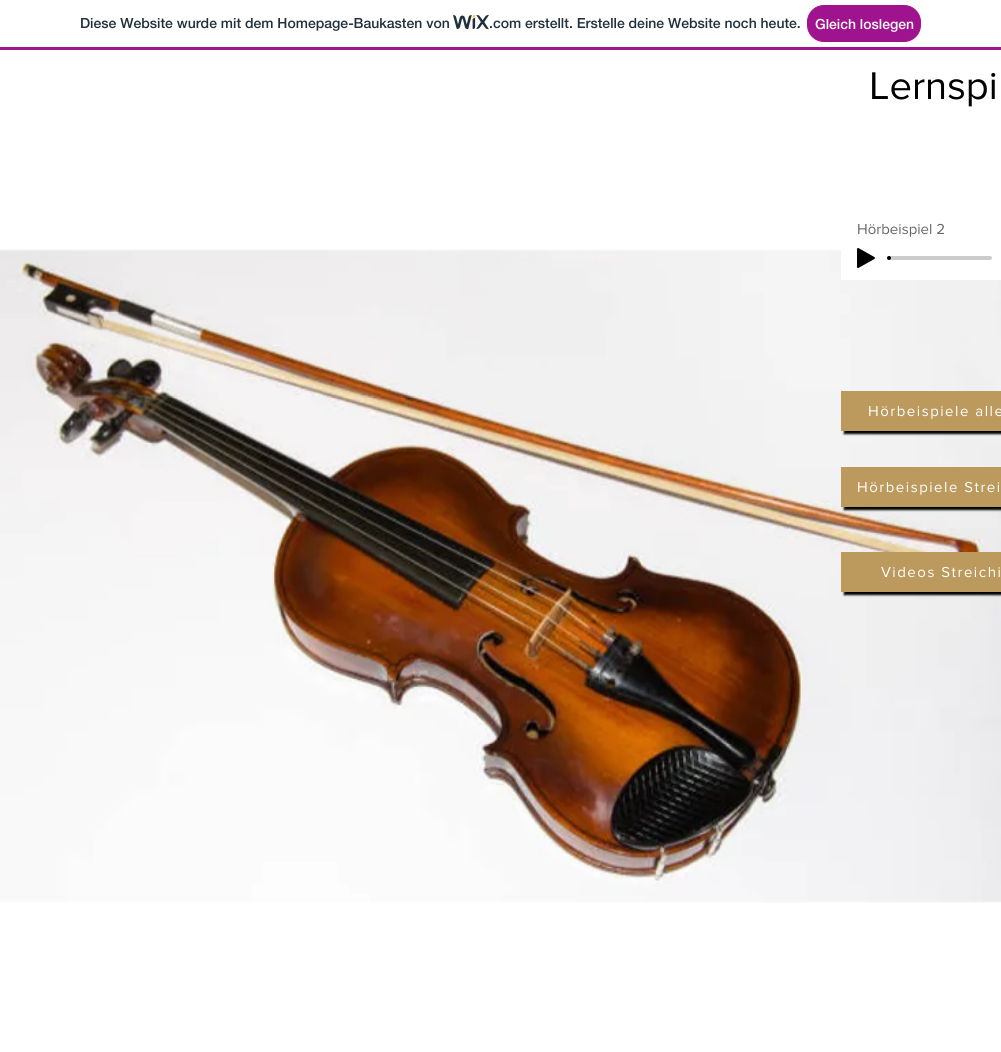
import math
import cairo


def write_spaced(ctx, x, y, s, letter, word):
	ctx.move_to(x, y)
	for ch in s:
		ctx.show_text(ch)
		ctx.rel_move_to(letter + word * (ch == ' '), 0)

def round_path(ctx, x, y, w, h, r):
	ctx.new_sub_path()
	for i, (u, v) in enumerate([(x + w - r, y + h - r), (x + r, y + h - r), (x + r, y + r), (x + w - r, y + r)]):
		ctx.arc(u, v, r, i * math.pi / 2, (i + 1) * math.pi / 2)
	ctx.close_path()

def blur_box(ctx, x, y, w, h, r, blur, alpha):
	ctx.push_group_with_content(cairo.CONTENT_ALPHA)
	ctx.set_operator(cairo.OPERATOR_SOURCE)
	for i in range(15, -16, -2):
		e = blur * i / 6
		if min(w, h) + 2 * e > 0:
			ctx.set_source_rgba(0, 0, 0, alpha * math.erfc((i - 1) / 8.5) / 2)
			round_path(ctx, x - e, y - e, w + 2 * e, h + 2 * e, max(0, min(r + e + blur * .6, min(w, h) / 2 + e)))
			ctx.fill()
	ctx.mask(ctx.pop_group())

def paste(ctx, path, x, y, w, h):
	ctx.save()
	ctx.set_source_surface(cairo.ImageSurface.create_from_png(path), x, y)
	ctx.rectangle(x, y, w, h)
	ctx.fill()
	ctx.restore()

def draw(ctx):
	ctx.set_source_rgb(1, 1, 1)
	ctx.paint()
	ctx.set_source_rgb(0.627, 0.075, 0.557)
	ctx.rectangle(0, 47, 1001, 3)
	ctx.fill()
	ctx.select_font_face('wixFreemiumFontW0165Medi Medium')
	ctx.set_font_size(14)
	ctx.set_source_rgb(0.125, 0.188, 0.235)
	ctx.move_to(80, 28)
	ctx.show_text('Diese Website wurde mit dem Homepage-Baukasten von')
	paste(ctx, 'media/1.png', 453, 15, 36, 15)
	ctx.move_to(489, 28)
	ctx.show_text('.com erstellt. Erstelle deine Website noch heute.')
	ctx.set_source_rgb(0.627, 0.075, 0.557)
	round_path(ctx, 807.5, 5.5, 113, 36, 16.5)
	ctx.fill_preserve()
	ctx.set_line_width(1)
	ctx.stroke()
	ctx.set_source_rgb(1, 1, 1)
	ctx.move_to(815, 29)
	ctx.show_text('Gleich loslegen')
	ctx.select_font_face('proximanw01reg')
	ctx.set_font_size(40)
	ctx.set_source_rgb(0, 0, 0)
	ctx.move_to(869, 99)
	ctx.show_text('Lernspi')
	paste(ctx, 'media/3.png', 0, 249, 1001, 654)
	ctx.set_source_rgb(1, 1, 1)
	ctx.rectangle(841, 249, 160, 31)
	ctx.fill()
	ctx.set_font_size(15)
	ctx.set_source_rgb(0.4, 0.4, 0.4)
	ctx.move_to(857, 234)
	ctx.show_text('Hörbeispiel 2')
	paste(ctx, 'media/2.png', 857, 248, 18, 20)
	ctx.set_source_rgb(0.8, 0.8, 0.8)
	round_path(ctx, 889, 256, 103, 4, 2)
	ctx.fill()
	ctx.set_source_rgb(0, 0, 0)
	ctx.arc(889, 258, 2, 0, 2 * math.pi)
	ctx.fill()
	ctx.set_source_rgb(0, 0, 0)
	blur_box(ctx, 844, 394, 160, 40, 0, 1, 1)
	ctx.set_source_rgb(0.737, 0.6, 0.365)
	ctx.rectangle(841, 391, 160, 40)
	ctx.fill()
	ctx.set_source_rgb(1, 1, 1)
	write_spaced(ctx, 868, 416, 'Hörbeispiele alle', 1.5, 0)
	ctx.set_source_rgb(0, 0, 0)
	blur_box(ctx, 844, 470, 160, 40, 0, 1, 1)
	ctx.set_source_rgb(0.737, 0.6, 0.365)
	ctx.rectangle(841, 467, 160, 40)
	ctx.fill()
	ctx.set_source_rgb(1, 1, 1)
	write_spaced(ctx, 857, 492, 'Hörbeispiele Strei', 1.5, 0)
	ctx.set_source_rgb(0, 0, 0)
	blur_box(ctx, 844, 555, 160, 40, 0, 1, 1)
	ctx.set_source_rgb(0.737, 0.6, 0.365)
	ctx.rectangle(841, 552, 160, 40)
	ctx.fill()
	ctx.set_source_rgb(1, 1, 1)
	write_spaced(ctx, 881, 577, 'Videos Streichi', 1.5, 0)


surface = cairo.ImageSurface(cairo.FORMAT_RGB24, 1001, 1052)
ctx = cairo.Context(surface)
options = cairo.FontOptions()
options.set_hint_metrics(cairo.HINT_METRICS_OFF)
options.set_hint_style(cairo.HINT_STYLE_NONE)
ctx.set_font_options(options)
ctx.set_miter_limit(4)
draw(ctx)
surface.write_to_png('image.png')
